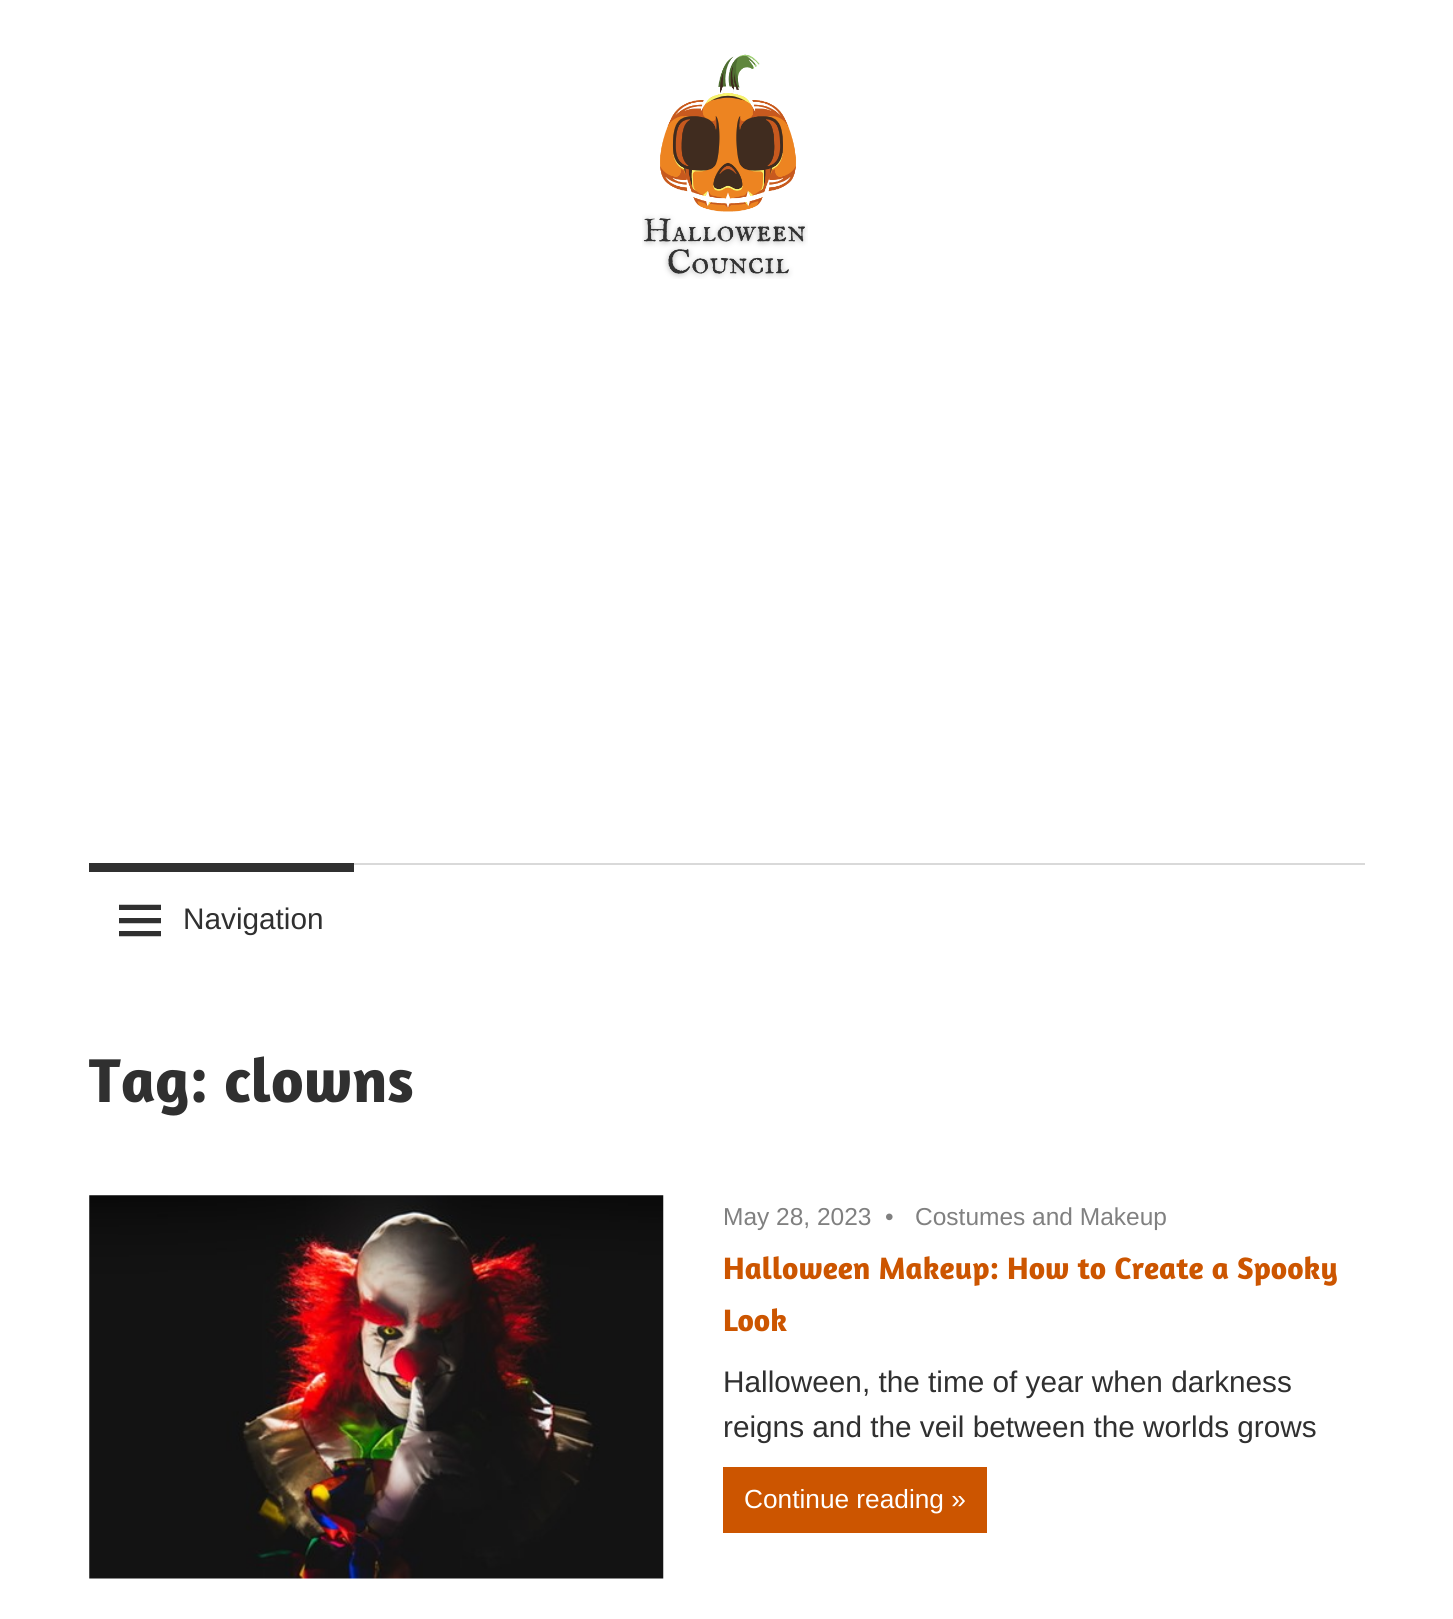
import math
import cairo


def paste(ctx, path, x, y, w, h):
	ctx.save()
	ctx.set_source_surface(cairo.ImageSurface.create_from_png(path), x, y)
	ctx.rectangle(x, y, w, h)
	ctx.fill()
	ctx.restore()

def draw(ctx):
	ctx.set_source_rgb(1, 1, 1)
	ctx.paint()
	paste(ctx, 'media/1.png', 642, 54, 166, 225)
	ctx.set_source_rgb(0.851, 0.851, 0.851)
	ctx.rectangle(354, 863, 1011, 2)
	ctx.fill()
	ctx.set_source_rgb(0.188, 0.188, 0.188)
	ctx.rectangle(89, 863, 265, 9)
	ctx.fill()
	paste(ctx, 'media/2.png', 119, 904, 42, 33)
	ctx.select_font_face('Liberation Sans')
	ctx.set_font_size(29.75)
	ctx.move_to(183, 929)
	ctx.show_text('Navigation')
	ctx.select_font_face('Amaranth', cairo.FONT_SLANT_NORMAL, cairo.FONT_WEIGHT_BOLD)
	ctx.set_font_size(63)
	ctx.move_to(89, 1102)
	ctx.show_text('Tag: clowns')
	paste(ctx, 'media/3.png', 89, 1195, 575, 384)
	ctx.select_font_face('Liberation Sans')
	ctx.set_font_size(24.5)
	ctx.set_source_rgb(0.502, 0.502, 0.502)
	for x, y, s in [
		(723, 1225, 'May 28, 2023'),
		(885, 1225, '•'),
		(915, 1225, 'Costumes and Makeup'),
	]:
		ctx.move_to(x, y)
		ctx.show_text(s)
	ctx.select_font_face('Amaranth', cairo.FONT_SLANT_NORMAL, cairo.FONT_WEIGHT_BOLD)
	ctx.set_font_size(31.5)
	ctx.set_source_rgb(0.8, 0.333, 0)
	ctx.move_to(723, 1279)
	ctx.show_text('Halloween Makeup: How to Create a Spooky')
	ctx.move_to(723, 1331)
	ctx.show_text('Look')
	ctx.select_font_face('Liberation Sans')
	ctx.set_font_size(29.75)
	ctx.set_source_rgb(0.188, 0.188, 0.188)
	ctx.move_to(723, 1392)
	ctx.show_text('Halloween, the time of year when darkness')
	ctx.move_to(723, 1437)
	ctx.show_text('reigns and the veil between the worlds grows')
	ctx.set_source_rgb(0.8, 0.333, 0)
	ctx.rectangle(723, 1467, 264, 66)
	ctx.fill()
	ctx.set_font_size(26.25)
	ctx.set_source_rgb(1, 1, 1)
	ctx.move_to(744, 1508)
	ctx.show_text('Continue reading »')


surface = cairo.ImageSurface(cairo.FORMAT_RGB24, 1453, 1619)
ctx = cairo.Context(surface)
options = cairo.FontOptions()
options.set_hint_metrics(cairo.HINT_METRICS_OFF)
options.set_hint_style(cairo.HINT_STYLE_NONE)
ctx.set_font_options(options)
ctx.set_miter_limit(4)
draw(ctx)
surface.write_to_png('image.png')
